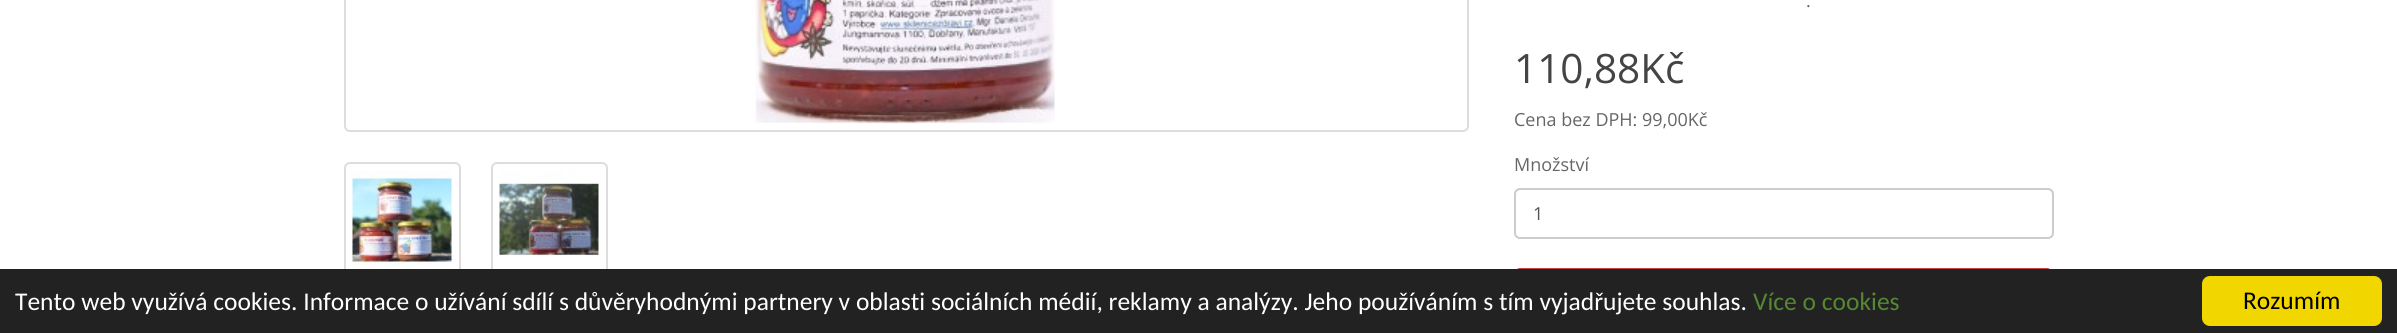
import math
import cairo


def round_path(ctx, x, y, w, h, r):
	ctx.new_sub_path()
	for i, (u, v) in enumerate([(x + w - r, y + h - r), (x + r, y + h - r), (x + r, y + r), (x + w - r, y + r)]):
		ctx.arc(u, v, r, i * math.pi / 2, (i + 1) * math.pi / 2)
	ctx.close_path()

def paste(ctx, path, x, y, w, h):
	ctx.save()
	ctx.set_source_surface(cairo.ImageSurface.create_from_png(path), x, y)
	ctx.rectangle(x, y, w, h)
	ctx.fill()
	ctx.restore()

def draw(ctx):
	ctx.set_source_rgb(1, 1, 1)
	ctx.paint()
	round_path(ctx, 345, -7, 1123, 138, 5)
	ctx.set_source_rgb(0.867, 0.867, 0.867)
	ctx.stroke()
	paste(ctx, 'media/1.png', 755, 0, 300, 124)
	round_path(ctx, 345, 163, 115, 115, 5)
	ctx.stroke()
	paste(ctx, 'media/2.png', 352, 170, 100, 99)
	round_path(ctx, 492, 163, 115, 115, 5)
	ctx.stroke()
	paste(ctx, 'media/3.png', 499, 170, 100, 87)
	ctx.select_font_face('Open Sans')
	ctx.set_font_size(18)
	ctx.set_source_rgb(0.4, 0.4, 0.4)
	ctx.move_to(1806, 7)
	ctx.show_text('.')
	ctx.set_font_size(40.5)
	ctx.set_source_rgb(0.267, 0.267, 0.267)
	ctx.move_to(1514, 83)
	ctx.show_text('110,88Kč')
	ctx.set_font_size(18)
	ctx.set_source_rgb(0.4, 0.4, 0.4)
	ctx.move_to(1514, 126)
	ctx.show_text('Cena bez DPH: 99,00Kč')
	ctx.move_to(1514, 171)
	ctx.show_text('Množství')
	ctx.set_source_rgb(0.925, 0.925, 0.925)
	ctx.new_path()
	ctx.move_to(1520, 190)
	ctx.line_to(2048, 190)
	ctx.curve_to(2050, 190, 2052, 193, 2052, 195)
	ctx.curve_to(2052, 192, 2050, 189, 2047, 189)
	ctx.line_to(1520, 189)
	ctx.curve_to(1517, 189, 1515, 192, 1515, 195)
	ctx.curve_to(1515, 193, 1517, 190, 1520, 190)
	ctx.close_path()
	ctx.fill()
	round_path(ctx, 1515, 189, 538, 49, 5)
	ctx.set_source_rgb(0.8, 0.8, 0.8)
	ctx.stroke()
	ctx.set_source_rgb(0.333, 0.333, 0.333)
	ctx.move_to(1533, 220)
	ctx.show_text('1')
	ctx.new_path()
	ctx.move_to(1516, 329)
	ctx.curve_to(1515, 328, 1514, 327, 1514, 325.5)
	ctx.line_to(1514, 274.5)
	ctx.curve_to(1514, 273, 1515, 272, 1516, 271)
	ctx.curve_to(1517, 270, 1518, 269, 1519.5, 269)
	ctx.line_to(2047.5, 269)
	ctx.curve_to(2049, 269, 2050, 270, 2051, 271)
	ctx.curve_to(2052, 272, 2053, 273, 2053, 274.5)
	ctx.line_to(2053, 325.5)
	ctx.curve_to(2053, 327, 2052, 328, 2051, 329)
	ctx.set_source_rgb(0.686, 0, 0)
	ctx.set_line_width(1.5)
	ctx.stroke()
	ctx.set_source_rgb(0.133, 0.133, 0.133)
	ctx.rectangle(0, 269, 2397, 64)
	ctx.fill()
	ctx.select_font_face('Carlito')
	ctx.set_font_size(25.5)
	ctx.set_source_rgb(1, 1, 1)
	ctx.move_to(15, 310)
	ctx.show_text('Tento web využívá cookies. Informace o užívání sdílí s důvěryhodnými partnery v oblasti sociálních médií, reklamy a analýzy. Jeho používáním s tím vyjadřujete souhlas.')
	ctx.set_source_rgb(0.333, 0.533, 0.2)
	ctx.move_to(1753, 310)
	ctx.show_text('Více o cookies')
	ctx.set_source_rgb(0.945, 0.839, 0)
	round_path(ctx, 2202, 276, 180, 50, 8)
	ctx.fill()
	ctx.set_source_rgb(0, 0, 0)
	ctx.move_to(2243, 309)
	ctx.show_text('Rozumím')


surface = cairo.ImageSurface(cairo.FORMAT_RGB24, 2397, 333)
ctx = cairo.Context(surface)
options = cairo.FontOptions()
options.set_hint_metrics(cairo.HINT_METRICS_OFF)
options.set_hint_style(cairo.HINT_STYLE_NONE)
ctx.set_font_options(options)
ctx.set_miter_limit(4)
draw(ctx)
surface.write_to_png('image.png')
